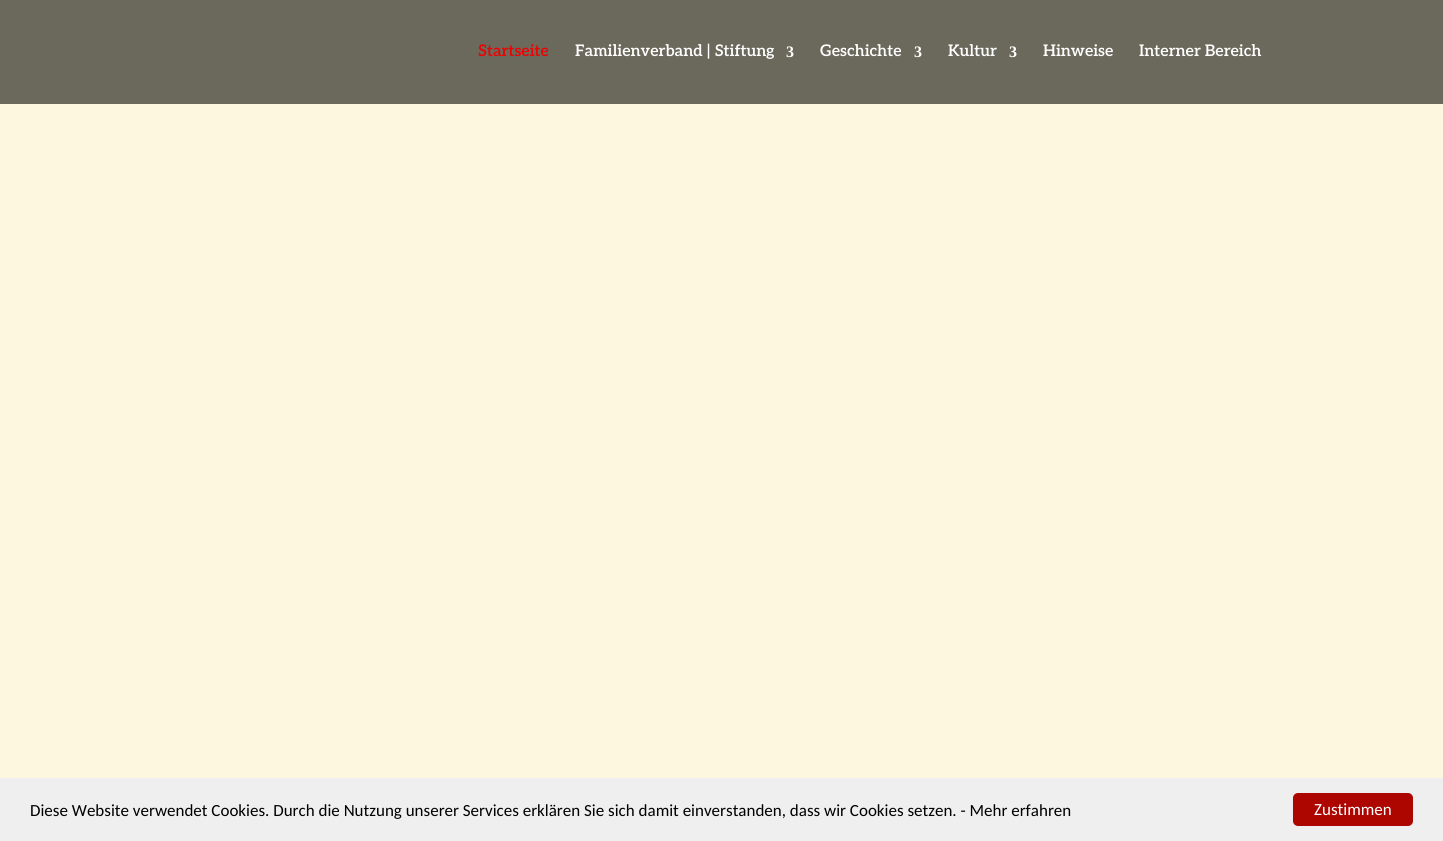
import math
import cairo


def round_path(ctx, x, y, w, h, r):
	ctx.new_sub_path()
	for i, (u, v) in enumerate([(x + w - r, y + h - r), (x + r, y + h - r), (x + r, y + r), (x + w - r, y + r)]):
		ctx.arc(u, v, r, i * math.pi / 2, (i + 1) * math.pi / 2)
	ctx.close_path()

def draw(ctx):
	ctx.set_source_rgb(0.988, 0.965, 0.871)
	ctx.paint()
	ctx.set_source_rgb(0.42, 0.412, 0.361)
	ctx.rectangle(0, 0, 1443, 104)
	ctx.fill()
	ctx.select_font_face('Aleo SemiBold')
	ctx.set_font_size(16)
	ctx.set_source_rgb(0.941, 0, 0)
	ctx.move_to(478, 56)
	ctx.show_text('Startseite')
	ctx.set_source_rgb(1, 1, 1)
	ctx.move_to(575, 56)
	ctx.show_text('Familienverband | Stiftung')
	ctx.select_font_face('Liberation Serif', cairo.FONT_SLANT_NORMAL, cairo.FONT_WEIGHT_BOLD)
	ctx.move_to(786, 57)
	ctx.show_text('3')
	ctx.select_font_face('Aleo SemiBold')
	ctx.move_to(820, 56)
	ctx.show_text('Geschichte')
	ctx.select_font_face('Liberation Serif', cairo.FONT_SLANT_NORMAL, cairo.FONT_WEIGHT_BOLD)
	ctx.move_to(914, 57)
	ctx.show_text('3')
	ctx.select_font_face('Aleo SemiBold')
	ctx.move_to(948, 56)
	ctx.show_text('Kultur')
	ctx.select_font_face('Liberation Serif', cairo.FONT_SLANT_NORMAL, cairo.FONT_WEIGHT_BOLD)
	ctx.move_to(1009, 57)
	ctx.show_text('3')
	ctx.select_font_face('Aleo SemiBold')
	ctx.move_to(1043, 56)
	ctx.show_text('Hinweise')
	ctx.move_to(1139, 56)
	ctx.show_text('Interner Bereich')
	ctx.set_source_rgb(0.937, 0.937, 0.937)
	ctx.rectangle(0, 778, 1443, 63)
	ctx.fill()
	ctx.select_font_face('Carlito')
	ctx.set_font_size(17)
	ctx.set_source_rgb(0, 0, 0)
	ctx.move_to(30, 816)
	ctx.show_text('Diese Website verwendet Cookies. Durch die Nutzung unserer Services erklären Sie sich damit einverstanden, dass wir Cookies setzen. - Mehr erfahren')
	ctx.set_source_rgb(0.678, 0.02, 0)
	round_path(ctx, 1293, 793, 120, 33, 5)
	ctx.fill()
	ctx.set_source_rgb(1, 1, 1)
	ctx.move_to(1314, 815)
	ctx.show_text('Zustimmen')


surface = cairo.ImageSurface(cairo.FORMAT_RGB24, 1443, 841)
ctx = cairo.Context(surface)
options = cairo.FontOptions()
options.set_hint_metrics(cairo.HINT_METRICS_OFF)
options.set_hint_style(cairo.HINT_STYLE_NONE)
ctx.set_font_options(options)
ctx.set_miter_limit(4)
draw(ctx)
surface.write_to_png('image.png')
